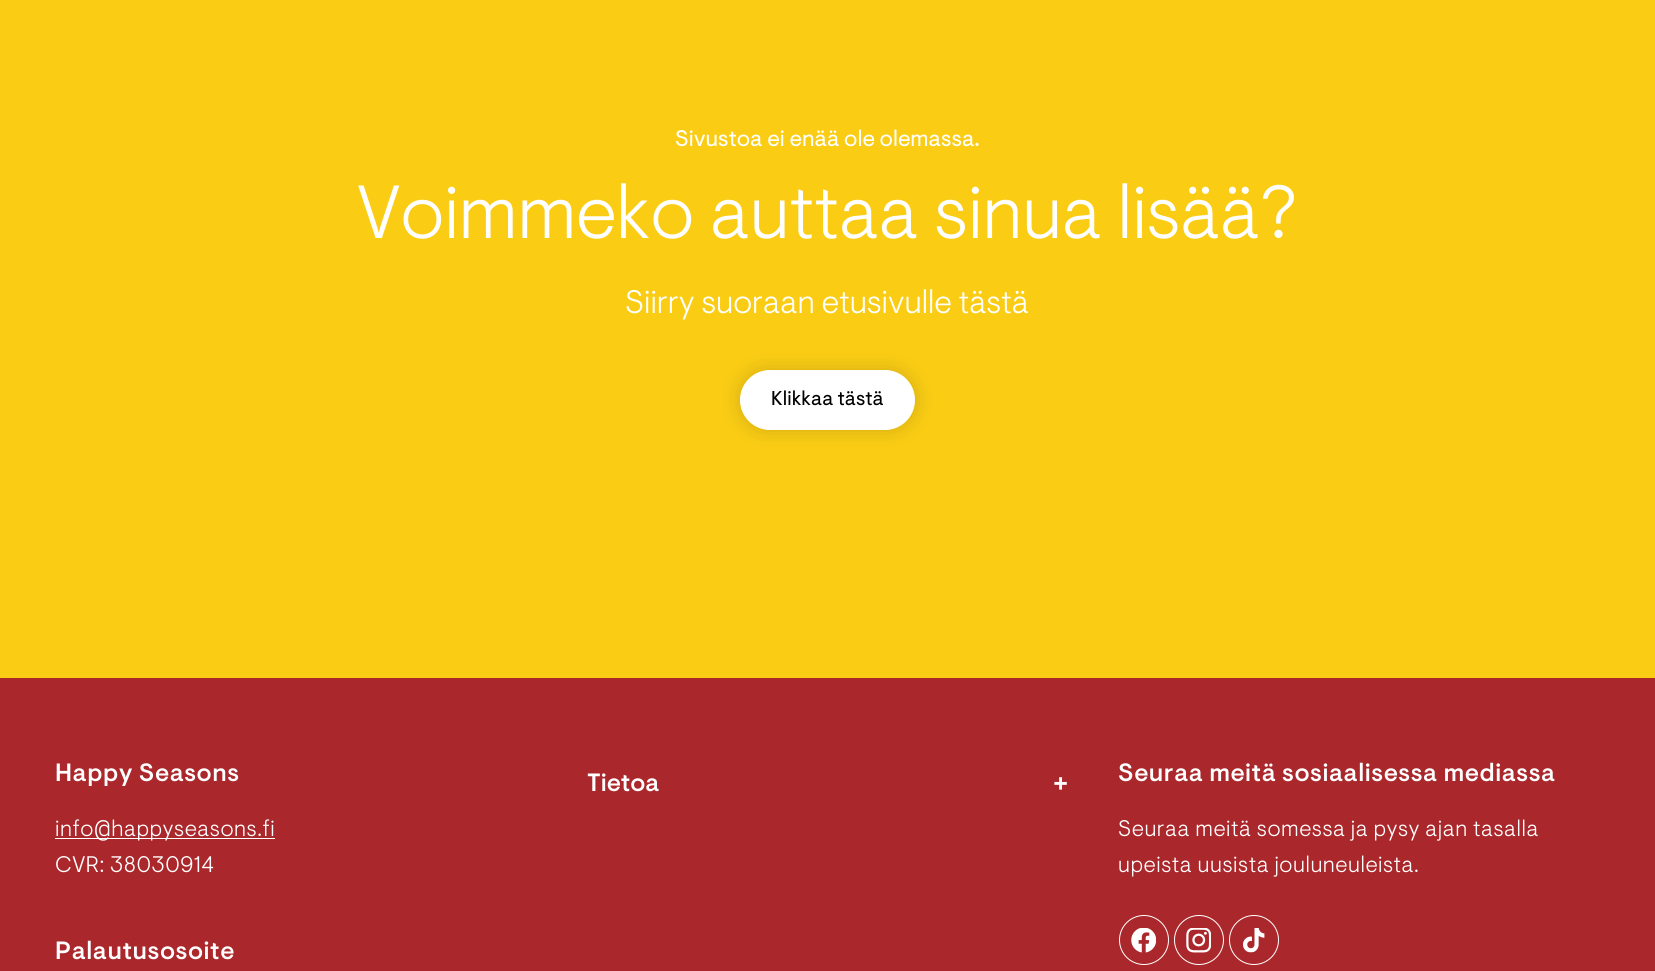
import math
import cairo


def write_spaced(ctx, x, y, s, letter, word):
	ctx.move_to(x, y)
	for ch in s:
		ctx.show_text(ch)
		ctx.rel_move_to(letter + word * (ch == ' '), 0)

def round_path(ctx, x, y, w, h, r):
	ctx.new_sub_path()
	for i, (u, v) in enumerate([(x + w - r, y + h - r), (x + r, y + h - r), (x + r, y + r), (x + w - r, y + r)]):
		ctx.arc(u, v, r, i * math.pi / 2, (i + 1) * math.pi / 2)
	ctx.close_path()

def blur_box(ctx, x, y, w, h, r, blur, alpha):
	ctx.push_group_with_content(cairo.CONTENT_ALPHA)
	ctx.set_operator(cairo.OPERATOR_SOURCE)
	for i in range(15, -16, -2):
		e = blur * i / 6
		if min(w, h) + 2 * e > 0:
			ctx.set_source_rgba(0, 0, 0, alpha * math.erfc((i - 1) / 8.5) / 2)
			round_path(ctx, x - e, y - e, w + 2 * e, h + 2 * e, max(0, min(r + e + blur * .6, min(w, h) / 2 + e)))
			ctx.fill()
	ctx.mask(ctx.pop_group())

def paste(ctx, path, x, y, w, h):
	ctx.save()
	ctx.set_source_surface(cairo.ImageSurface.create_from_png(path), x, y)
	ctx.rectangle(x, y, w, h)
	ctx.fill()
	ctx.restore()

def draw(ctx):
	ctx.set_source_rgb(0.667, 0.157, 0.173)
	ctx.paint()
	ctx.set_source_rgb(0.98, 0.8, 0.082)
	ctx.rectangle(0, 0, 1655, 678)
	ctx.fill()
	ctx.select_font_face('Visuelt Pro')
	ctx.set_font_size(22.5)
	ctx.set_source_rgb(1, 1, 1)
	ctx.move_to(675, 146)
	ctx.show_text('Sivustoa ei enää ole olemassa.')
	ctx.select_font_face('Visuelt Pro Light')
	ctx.set_font_size(75)
	ctx.move_to(357, 238)
	ctx.show_text('Voimmeko auttaa sinua lisää?')
	ctx.set_font_size(32.5)
	ctx.move_to(625, 313)
	ctx.show_text('Siirry suoraan etusivulle tästä')
	ctx.set_source_rgb(0, 0, 0)
	blur_box(ctx, 740, 370, 175, 60, 30, 10, 0.15)
	ctx.set_source_rgb(1, 1, 1)
	round_path(ctx, 740.5, 370.5, 174, 59, 29.5)
	ctx.fill_preserve()
	ctx.set_line_width(1)
	ctx.stroke()
	ctx.select_font_face('Visuelt Pro')
	ctx.set_font_size(20)
	ctx.set_source_rgb(0, 0, 0)
	ctx.move_to(771, 405)
	ctx.show_text('Klikkaa tästä')
	ctx.select_font_face('Visuelt Pro Medium')
	ctx.set_font_size(25)
	ctx.set_source_rgb(1, 1, 1)
	write_spaced(ctx, 55, 781, 'Happy Seasons', 0.55, 0)
	ctx.rectangle(55, 838, 220, 1)
	ctx.fill()
	ctx.select_font_face('Visuelt Pro Light')
	ctx.set_font_size(22.5)
	write_spaced(ctx, 55, 836, 'info@happyseasons.fi', 0.55, 0)
	write_spaced(ctx, 55, 872, 'CVR: 38030914', 0.55, 0)
	ctx.select_font_face('Visuelt Pro Medium')
	ctx.set_font_size(25)
	write_spaced(ctx, 55, 959, 'Palautusosoite', 0.55, 0)
	ctx.move_to(587, 791)
	ctx.show_text('Tietoa')
	ctx.set_font_size(30)
	ctx.move_to(1053, 793)
	ctx.show_text('+')
	ctx.set_font_size(25)
	write_spaced(ctx, 1118, 781, 'Seuraa meitä sosiaalisessa mediassa', 0.55, 0)
	ctx.select_font_face('Visuelt Pro Light')
	ctx.set_font_size(22.5)
	write_spaced(ctx, 1118, 836, 'Seuraa meitä somessa ja pysy ajan tasalla', 0.55, 0)
	write_spaced(ctx, 1118, 872, 'upeista uusista jouluneuleista.', 0.55, 0)
	ctx.new_path()
	ctx.arc(1144, 940, 24.5, 0, 2 * math.pi)
	ctx.stroke()
	paste(ctx, 'media/1.png', 1131, 928, 25, 25)
	ctx.arc(1199, 940, 24.5, 0, 2 * math.pi)
	ctx.stroke()
	paste(ctx, 'media/2.png', 1186, 928, 25, 25)
	ctx.arc(1254, 940, 24.5, 0, 2 * math.pi)
	ctx.stroke()
	paste(ctx, 'media/3.png', 1243, 928, 22, 25)


surface = cairo.ImageSurface(cairo.FORMAT_RGB24, 1655, 971)
ctx = cairo.Context(surface)
options = cairo.FontOptions()
options.set_hint_metrics(cairo.HINT_METRICS_OFF)
options.set_hint_style(cairo.HINT_STYLE_NONE)
ctx.set_font_options(options)
ctx.set_miter_limit(4)
draw(ctx)
surface.write_to_png('image.png')
